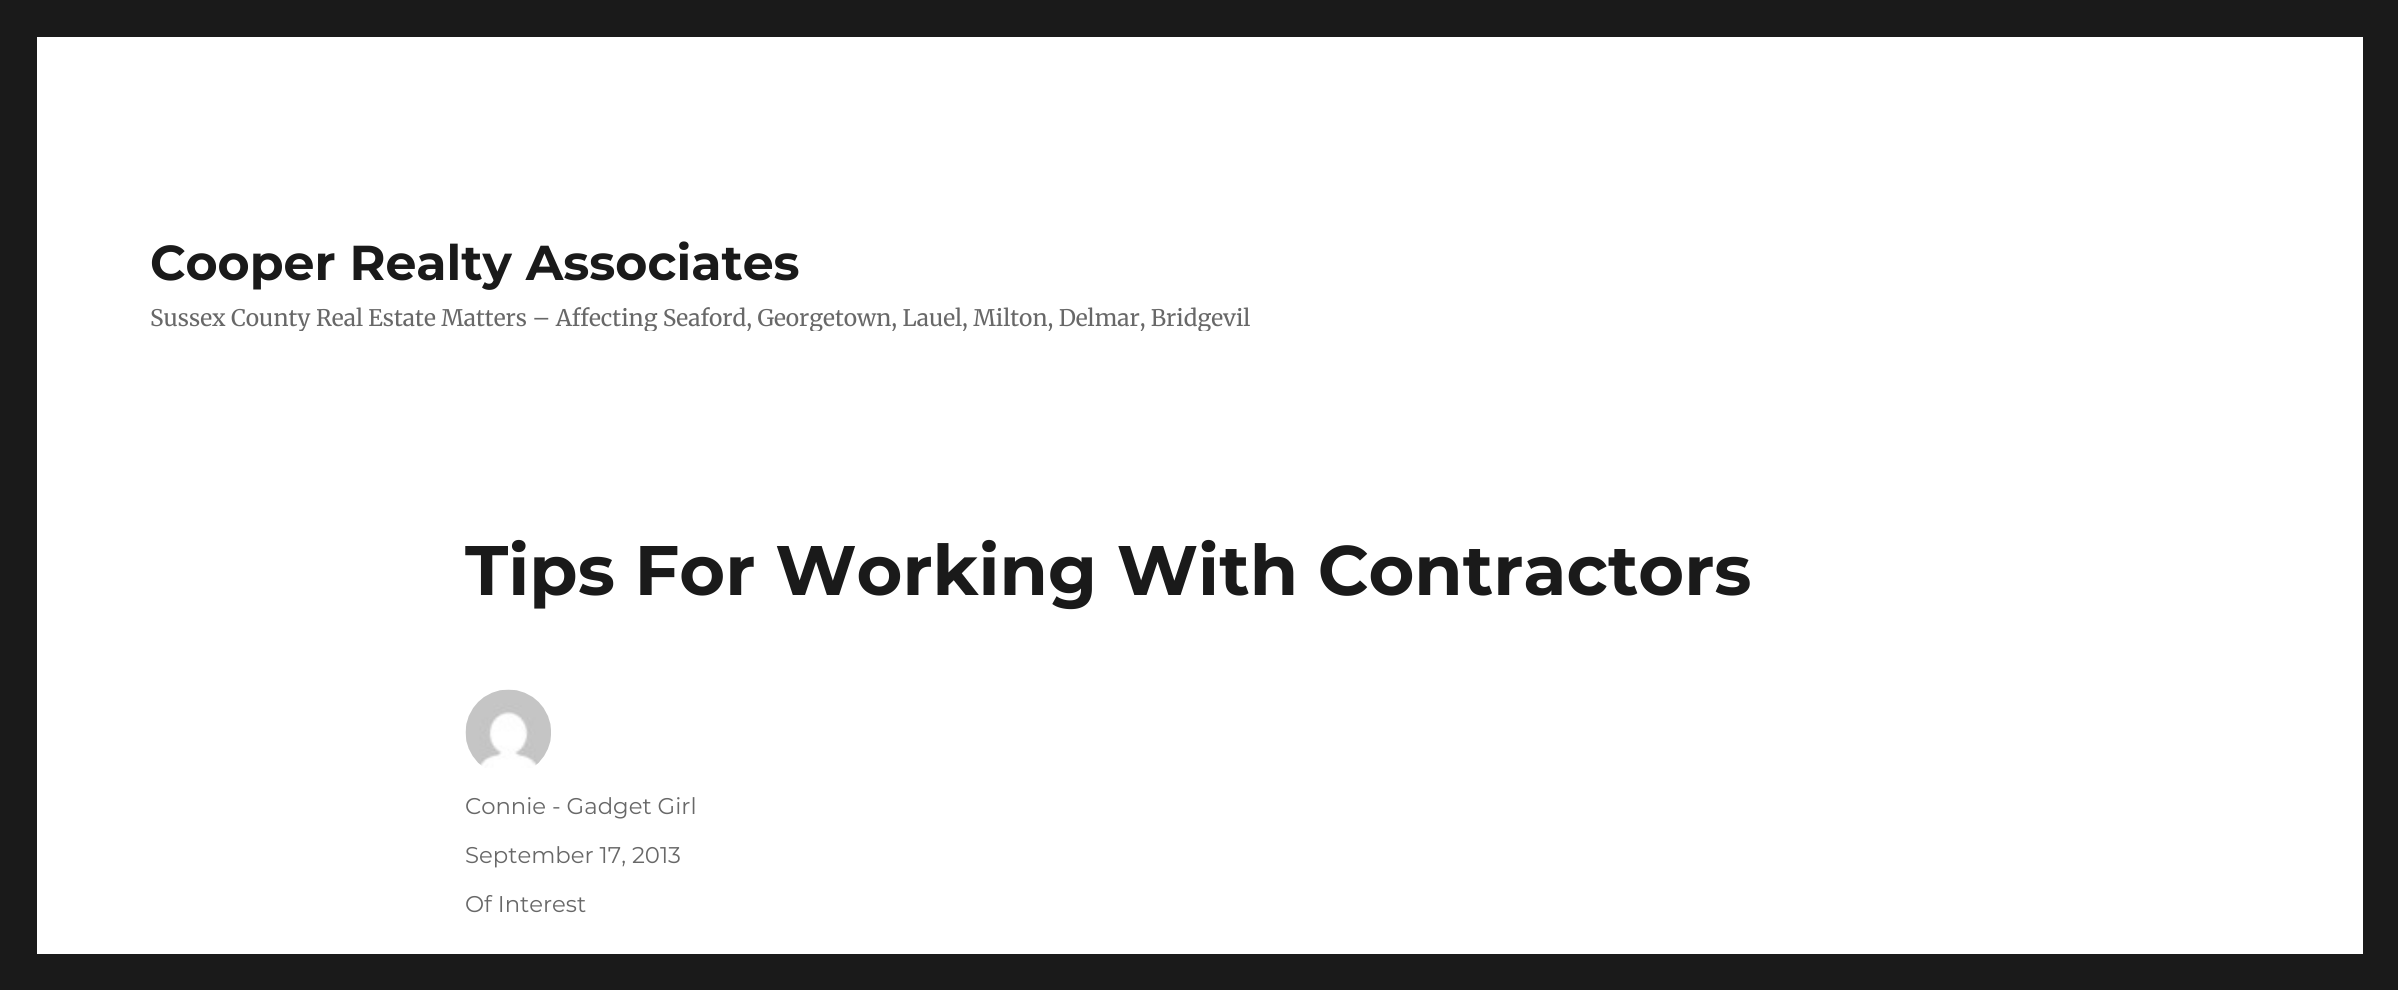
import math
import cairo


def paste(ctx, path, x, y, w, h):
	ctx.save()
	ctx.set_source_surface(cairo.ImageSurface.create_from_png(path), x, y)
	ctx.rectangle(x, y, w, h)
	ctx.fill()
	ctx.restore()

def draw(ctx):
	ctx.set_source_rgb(0.102, 0.102, 0.102)
	ctx.paint()
	ctx.set_source_rgb(1, 1, 1)
	ctx.rectangle(37, 37, 2326, 917)
	ctx.fill()
	ctx.select_font_face('Montserrat', cairo.FONT_SLANT_NORMAL, cairo.FONT_WEIGHT_BOLD)
	ctx.set_font_size(49)
	ctx.set_source_rgb(0.102, 0.102, 0.102)
	ctx.move_to(150, 280)
	ctx.show_text('Cooper Realty Associates')
	ctx.save()
	ctx.rectangle(151, 233, 1099, 98)
	ctx.clip()
	ctx.select_font_face('Merriweather')
	ctx.set_font_size(22.75)
	ctx.set_source_rgb(0.408, 0.408, 0.408)
	ctx.move_to(150, 326)
	ctx.show_text('Sussex County Real Estate Matters – Affecting Seaford, Georgetown, Lauel, Milton, Delmar, Bridgevil')
	ctx.restore()
	ctx.set_font_size(70)
	ctx.move_to(465, 595)
	ctx.show_text('Tips For Working With Contractors')
	paste(ctx, 'media/1.png', 465, 689, 86, 79)
	ctx.select_font_face('Montserrat')
	ctx.set_font_size(22.75)
	ctx.set_source_rgb(0.408, 0.408, 0.408)
	for x, y, s in [
		(465, 814, 'Connie - Gadget Girl'),
		(465, 863, 'September 17, 2013'),
		(465, 912, 'Of Interest'),
	]:
		ctx.move_to(x, y)
		ctx.show_text(s)


surface = cairo.ImageSurface(cairo.FORMAT_RGB24, 2398, 990)
ctx = cairo.Context(surface)
options = cairo.FontOptions()
options.set_hint_metrics(cairo.HINT_METRICS_OFF)
options.set_hint_style(cairo.HINT_STYLE_NONE)
ctx.set_font_options(options)
ctx.set_miter_limit(4)
draw(ctx)
surface.write_to_png('image.png')
